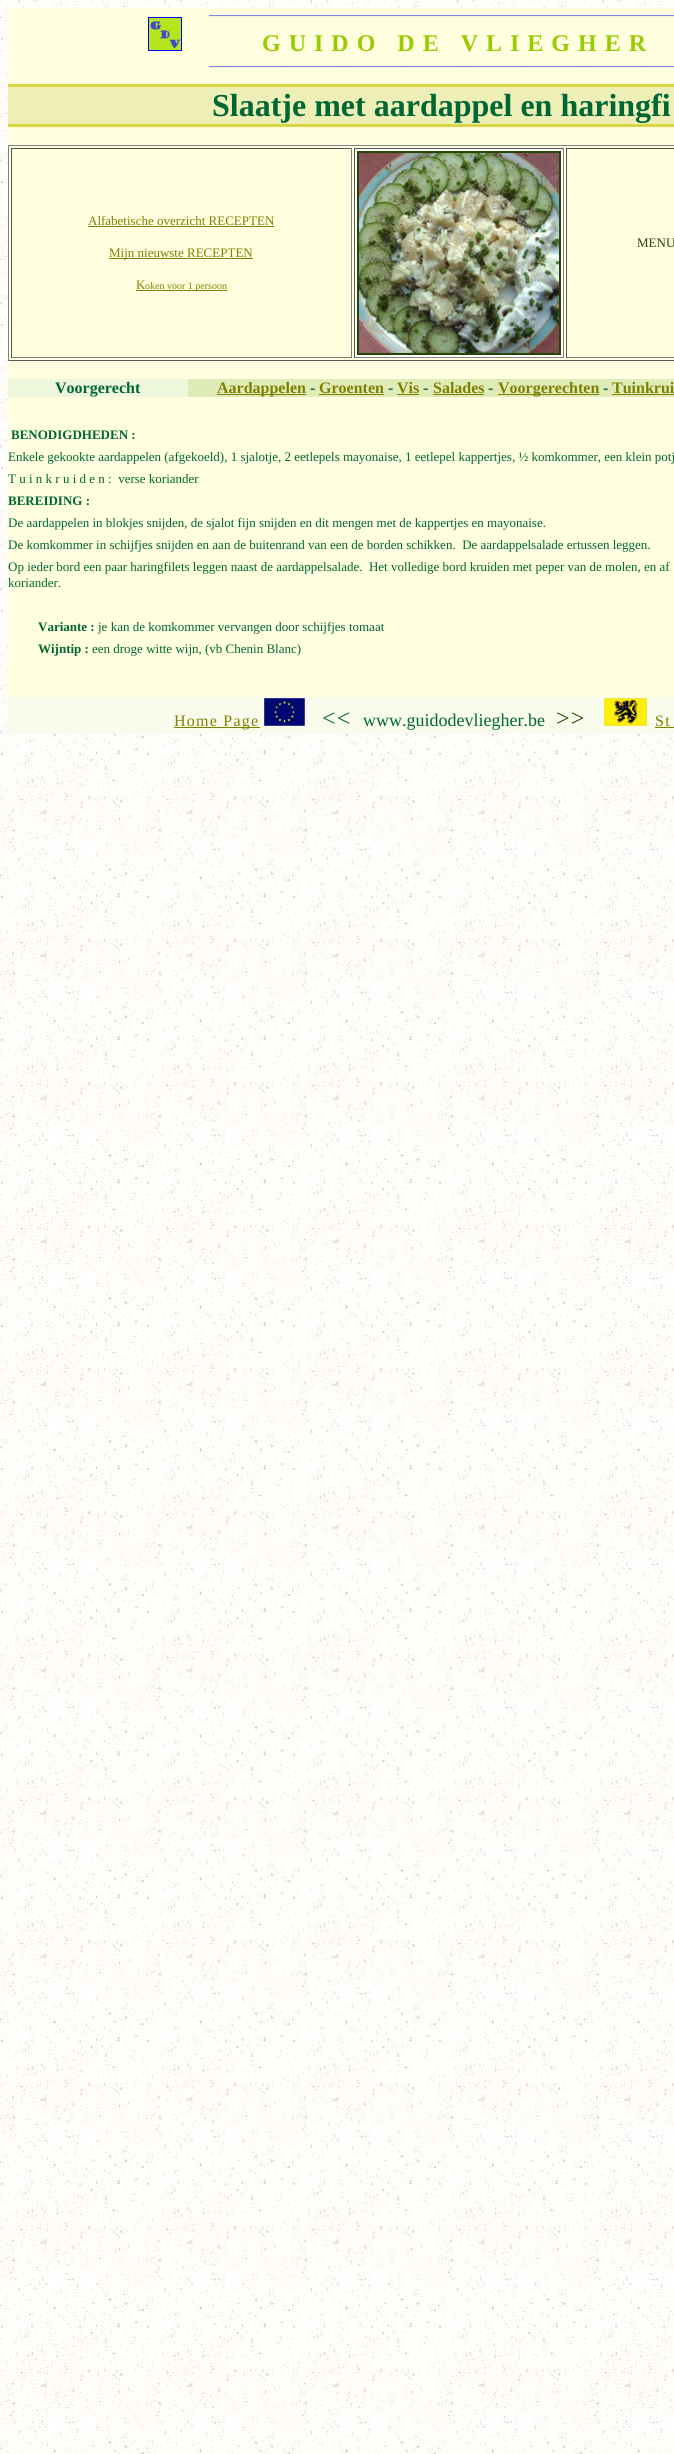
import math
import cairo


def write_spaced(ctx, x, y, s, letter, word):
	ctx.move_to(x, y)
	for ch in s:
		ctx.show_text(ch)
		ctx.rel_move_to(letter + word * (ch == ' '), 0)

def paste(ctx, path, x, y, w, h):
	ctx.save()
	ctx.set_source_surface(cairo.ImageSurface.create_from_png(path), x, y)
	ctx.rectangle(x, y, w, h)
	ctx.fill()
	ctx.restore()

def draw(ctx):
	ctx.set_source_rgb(1, 1, 1)
	ctx.paint()
	paste(ctx, 'media/1.png', 0, 0, 674, 2454)
	ctx.set_source_rgb(1, 1, 0.875)
	ctx.rectangle(8, 8, 666, 689)
	ctx.fill()
	ctx.select_font_face('Liberation Serif', cairo.FONT_SLANT_NORMAL, cairo.FONT_WEIGHT_BOLD)
	ctx.set_font_size(7.5)
	ctx.set_source_rgb(0, 0, 1)
	ctx.move_to(209, 15)
	ctx.show_text('____________________________________________________________________________________________________________________________')
	ctx.rectangle(148.5, 17.5, 33, 33)
	ctx.set_line_width(1)
	ctx.stroke()
	paste(ctx, 'media/2.png', 149, 18, 32, 32)
	ctx.set_font_size(24)
	ctx.set_source_rgb(0.6, 0.8, 0)
	write_spaced(ctx, 262, 51, 'GUIDO DE VLIEGHER', 8, 0)
	ctx.set_font_size(7.5)
	ctx.set_source_rgb(0, 0, 1)
	ctx.move_to(209, 66)
	ctx.show_text('____________________________________________________________________________________________________________________________')
	ctx.set_source_rgb(0.933, 0.937, 0.714)
	ctx.rectangle(8, 87, 666, 37)
	ctx.fill()
	ctx.set_source_rgb(0.851, 0.839, 0.275)
	ctx.rectangle(8, 84, 666, 3)
	ctx.rectangle(8, 124, 666, 3)
	ctx.fill()
	ctx.set_font_size(32)
	ctx.set_source_rgb(0, 0.4, 0.2)
	ctx.move_to(212, 116)
	ctx.show_text('Slaatje met aardappel en haringfi')
	ctx.set_source_rgb(0.502, 0.502, 0.502)
	ctx.rectangle(8, 145, 666, 1)
	ctx.fill()
	ctx.set_source_rgb(0.333, 0.333, 0.333)
	ctx.rectangle(8, 360, 666, 1)
	ctx.fill()
	ctx.set_source_rgb(0.502, 0.502, 0.502)
	ctx.rectangle(8, 145, 1, 216)
	ctx.fill()
	ctx.set_source_rgb(0.333, 0.333, 0.333)
	ctx.rectangle(11, 148, 341, 1)
	ctx.fill()
	ctx.set_source_rgb(0.502, 0.502, 0.502)
	ctx.rectangle(351, 148, 1, 210)
	ctx.rectangle(11, 357, 341, 1)
	ctx.fill()
	ctx.set_source_rgb(0.333, 0.333, 0.333)
	ctx.rectangle(11, 148, 1, 210)
	ctx.fill()
	ctx.select_font_face('Liberation Serif')
	ctx.set_font_size(13)
	ctx.set_source_rgb(0.502, 0.502, 0)
	ctx.move_to(88, 225)
	ctx.show_text('Alfabetische overzicht RECEPTEN')
	ctx.rectangle(88, 226, 186, 1)
	ctx.fill()
	ctx.rectangle(109, 258, 144, 1)
	ctx.fill()
	ctx.move_to(109, 257)
	ctx.show_text('Mijn nieuwste RECEPTEN')
	ctx.move_to(136, 289)
	ctx.show_text('K')
	ctx.rectangle(136, 290, 91, 1)
	ctx.fill()
	ctx.set_font_size(10)
	ctx.move_to(145, 289)
	ctx.show_text('oken voor 1 persoon')
	ctx.set_source_rgb(1, 1, 1)
	ctx.rectangle(355, 149, 208, 208)
	ctx.fill()
	ctx.set_source_rgb(0.333, 0.333, 0.333)
	ctx.rectangle(354, 148, 210, 1)
	ctx.fill()
	ctx.set_source_rgb(0.502, 0.502, 0.502)
	ctx.rectangle(563, 148, 1, 210)
	ctx.rectangle(354, 357, 210, 1)
	ctx.fill()
	ctx.set_source_rgb(0.333, 0.333, 0.333)
	ctx.rectangle(354, 148, 1, 210)
	ctx.fill()
	ctx.rectangle(358, 152, 202, 202)
	ctx.set_source_rgb(0.141, 0.275, 0.008)
	ctx.set_line_width(2)
	ctx.stroke()
	paste(ctx, 'media/3.png', 359, 153, 200, 200)
	ctx.set_source_rgb(0.333, 0.333, 0.333)
	ctx.rectangle(566, 148, 108, 1)
	ctx.fill()
	ctx.set_source_rgb(0.502, 0.502, 0.502)
	ctx.rectangle(566, 357, 108, 1)
	ctx.fill()
	ctx.set_source_rgb(0.333, 0.333, 0.333)
	ctx.rectangle(566, 148, 1, 210)
	ctx.fill()
	ctx.set_font_size(13)
	ctx.set_source_rgb(0.141, 0.275, 0.008)
	ctx.move_to(637, 247)
	ctx.show_text('MENU')
	ctx.set_source_rgb(0.933, 0.961, 0.863)
	ctx.rectangle(8, 379, 180, 18)
	ctx.fill()
	ctx.select_font_face('Liberation Serif', cairo.FONT_SLANT_NORMAL, cairo.FONT_WEIGHT_BOLD)
	ctx.set_font_size(16)
	ctx.set_source_rgb(0, 0.4, 0.2)
	ctx.move_to(55, 393)
	ctx.show_text('Voorgerecht')
	ctx.set_source_rgb(0.875, 0.922, 0.722)
	ctx.rectangle(188, 379, 486, 18)
	ctx.fill()
	ctx.set_source_rgb(0.502, 0.502, 0)
	ctx.rectangle(217, 394, 89, 1)
	ctx.fill()
	ctx.move_to(217, 393)
	ctx.show_text('Aardappelen')
	ctx.set_source_rgb(0, 0.4, 0.2)
	ctx.move_to(310, 393)
	ctx.show_text('-')
	ctx.set_source_rgb(0.502, 0.502, 0)
	ctx.move_to(319, 393)
	ctx.show_text('Groenten')
	ctx.rectangle(319, 394, 65, 1)
	ctx.fill()
	ctx.set_source_rgb(0, 0.4, 0.2)
	ctx.move_to(388, 393)
	ctx.show_text('-')
	ctx.set_source_rgb(0.502, 0.502, 0)
	ctx.move_to(397, 393)
	ctx.show_text('Vis')
	ctx.rectangle(397, 394, 22, 1)
	ctx.fill()
	ctx.set_source_rgb(0, 0.4, 0.2)
	ctx.move_to(423, 393)
	ctx.show_text('-')
	ctx.set_source_rgb(0.502, 0.502, 0)
	ctx.move_to(433, 393)
	ctx.show_text('Salades')
	ctx.rectangle(433, 394, 51, 1)
	ctx.fill()
	ctx.set_source_rgb(0, 0.4, 0.2)
	ctx.move_to(488, 393)
	ctx.show_text('-')
	ctx.set_source_rgb(0.502, 0.502, 0)
	ctx.rectangle(498, 394, 101, 1)
	ctx.fill()
	ctx.move_to(498, 393)
	ctx.show_text('Voorgerechten')
	ctx.set_source_rgb(0, 0.4, 0.2)
	ctx.move_to(603, 393)
	ctx.show_text('-')
	ctx.set_source_rgb(0.502, 0.502, 0)
	ctx.move_to(612, 393)
	ctx.show_text('Tuinkrui')
	ctx.rectangle(612, 394, 62, 1)
	ctx.fill()
	ctx.set_font_size(13)
	ctx.set_source_rgb(0, 0.4, 0.2)
	ctx.move_to(11, 439)
	ctx.show_text('BENODIGDHEDEN :')
	ctx.select_font_face('Liberation Serif')
	ctx.move_to(8, 461)
	ctx.show_text('Enkele gekookte aardappelen (afgekoeld), 1 sjalotje, 2 eetlepels mayonaise, 1 eetlepel kappertjes, ½ komkommer, een klein potj')
	ctx.move_to(8, 483)
	ctx.show_text('T u i n k r u i d e n :  verse koriander')
	ctx.select_font_face('Liberation Serif', cairo.FONT_SLANT_NORMAL, cairo.FONT_WEIGHT_BOLD)
	ctx.move_to(8, 505)
	ctx.show_text('BEREIDING :')
	ctx.select_font_face('Liberation Serif')
	for x, y, s in [
		(8, 527, 'De aardappelen in blokjes snijden, de sjalot fijn snijden en dit mengen met de kappertjes en mayonaise.'),
		(8, 549, 'De komkommer in schijfjes snijden en aan de buitenrand van een de borden schikken.  De aardappelsalade ertussen leggen.'),
		(8, 571, 'Op ieder bord een paar haringfilets leggen naast de aardappelsalade.  Het volledige bord kruiden met peper van de molen, en af'),
		(8, 587, 'koriander.'),
	]:
		ctx.move_to(x, y)
		ctx.show_text(s)
	ctx.select_font_face('Liberation Serif', cairo.FONT_SLANT_NORMAL, cairo.FONT_WEIGHT_BOLD)
	ctx.move_to(38, 631)
	ctx.show_text('Variante :')
	ctx.select_font_face('Liberation Serif')
	ctx.move_to(98, 631)
	ctx.show_text('je kan de komkommer vervangen door schijfjes tomaat')
	ctx.select_font_face('Liberation Serif', cairo.FONT_SLANT_NORMAL, cairo.FONT_WEIGHT_BOLD)
	ctx.move_to(38, 653)
	ctx.show_text('Wijntip :')
	ctx.select_font_face('Liberation Serif')
	ctx.move_to(92, 653)
	ctx.show_text('een droge witte wijn, (vb Chenin Blanc)')
	ctx.set_source_rgb(0.976, 0.988, 0.929)
	ctx.rectangle(8, 697, 666, 37)
	ctx.fill()
	ctx.set_source_rgb(0.502, 0.502, 0)
	ctx.rectangle(174, 727, 86, 1)
	ctx.fill()
	ctx.set_font_size(16)
	write_spaced(ctx, 174, 726, 'Home Page', 1.25, 0)
	paste(ctx, 'media/4.png', 264, 698, 41, 28)
	ctx.set_font_size(24)
	ctx.set_source_rgb(0, 0.4, 0.2)
	write_spaced(ctx, 322, 726, '<<', 1.25, 0)
	ctx.set_font_size(18)
	ctx.move_to(363, 726)
	ctx.show_text('www.guidodevliegher.be')
	ctx.set_font_size(24)
	ctx.set_source_rgb(0.141, 0.275, 0.008)
	write_spaced(ctx, 556, 726, '>>', 1.25, 0)
	paste(ctx, 'media/5.png', 604, 698, 43, 28)
	ctx.set_font_size(16)
	ctx.set_source_rgb(0.502, 0.502, 0)
	write_spaced(ctx, 655, 726, 'St', 1.25, 0)
	ctx.rectangle(655, 727, 19, 1)
	ctx.fill()


surface = cairo.ImageSurface(cairo.FORMAT_RGB24, 674, 2454)
ctx = cairo.Context(surface)
options = cairo.FontOptions()
options.set_hint_metrics(cairo.HINT_METRICS_OFF)
options.set_hint_style(cairo.HINT_STYLE_NONE)
ctx.set_font_options(options)
ctx.set_miter_limit(4)
draw(ctx)
surface.write_to_png('image.png')
